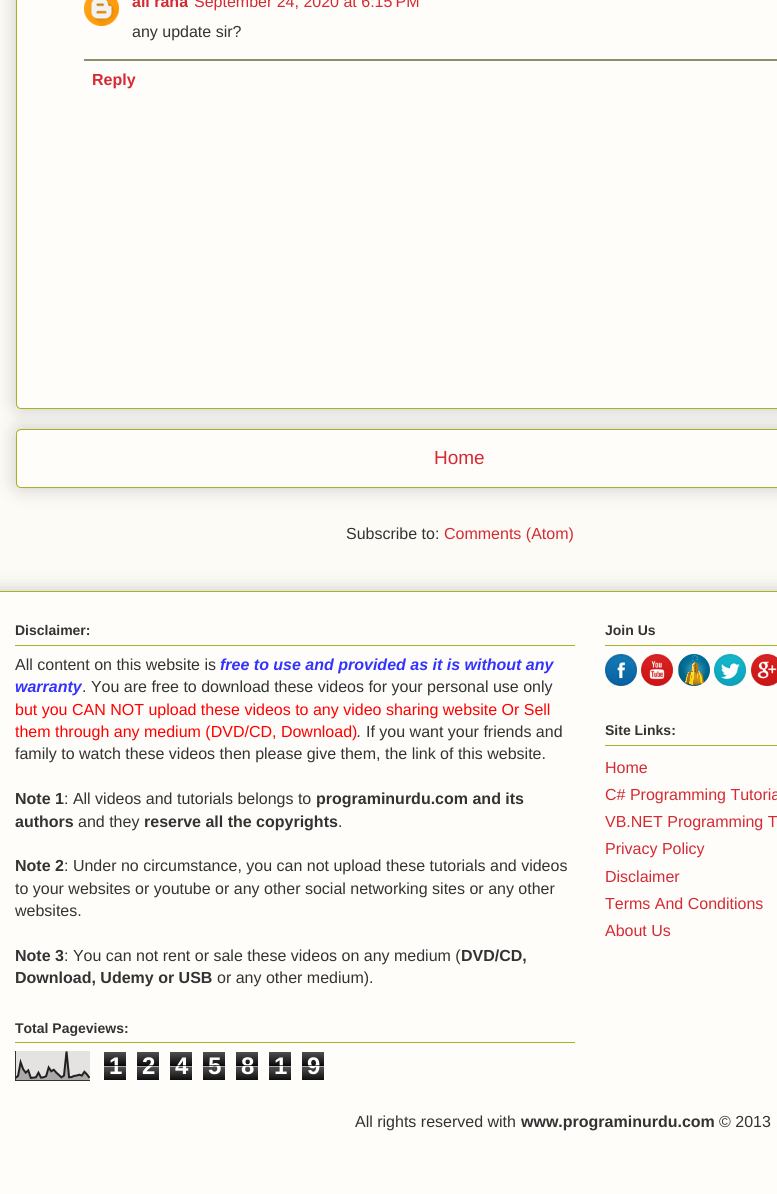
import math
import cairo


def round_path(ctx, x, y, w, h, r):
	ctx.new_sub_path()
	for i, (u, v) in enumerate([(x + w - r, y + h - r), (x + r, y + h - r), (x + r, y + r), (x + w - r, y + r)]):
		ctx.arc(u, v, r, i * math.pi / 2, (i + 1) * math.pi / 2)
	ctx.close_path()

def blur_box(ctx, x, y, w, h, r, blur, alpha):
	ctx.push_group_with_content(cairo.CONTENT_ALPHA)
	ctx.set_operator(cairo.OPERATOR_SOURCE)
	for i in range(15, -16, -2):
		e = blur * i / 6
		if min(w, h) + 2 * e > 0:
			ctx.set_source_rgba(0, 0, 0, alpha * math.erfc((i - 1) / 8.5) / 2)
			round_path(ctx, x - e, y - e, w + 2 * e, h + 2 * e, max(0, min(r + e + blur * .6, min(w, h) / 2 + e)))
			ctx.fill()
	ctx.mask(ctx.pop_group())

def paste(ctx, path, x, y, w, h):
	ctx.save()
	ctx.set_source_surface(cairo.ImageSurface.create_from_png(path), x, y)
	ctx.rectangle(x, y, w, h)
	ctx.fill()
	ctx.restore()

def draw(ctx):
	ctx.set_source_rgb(0.988, 0.984, 0.961)
	ctx.paint()
	ctx.set_source_rgb(0, 0, 0)
	blur_box(ctx, 16, 429, 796, 59, 5, 10, 0.2)
	ctx.set_source_rgb(0.996, 0.992, 0.98)
	round_path(ctx, 16.5, 429.5, 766, 58, 4.5)
	ctx.fill_preserve()
	ctx.set_source_rgb(0.667, 0.694, 0.137)
	ctx.set_line_width(1)
	ctx.stroke()
	ctx.set_source_rgb(0, 0, 0)
	blur_box(ctx, 16, -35, 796, 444, 5, 10, 0.2)
	ctx.set_source_rgb(0.996, 0.992, 0.98)
	round_path(ctx, 16.5, -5.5, 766, 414, 4.5)
	ctx.fill_preserve()
	ctx.set_source_rgb(0.667, 0.694, 0.137)
	ctx.stroke()
	paste(ctx, 'media/1.png', 84, 0, 35, 26)
	ctx.select_font_face('Liberation Sans', cairo.FONT_SLANT_NORMAL, cairo.FONT_WEIGHT_BOLD)
	ctx.set_font_size(16)
	ctx.set_source_rgb(0.835, 0.165, 0.2)
	ctx.move_to(132, 7)
	ctx.show_text('ali rana')
	ctx.select_font_face('Liberation Sans')
	ctx.move_to(194, 7)
	ctx.show_text('September 24, 2020 at 6:15 PM')
	ctx.set_source_rgb(0.2, 0.2, 0.2)
	ctx.move_to(132, 37)
	ctx.show_text('any update sir?')
	ctx.set_source_rgb(0.565, 0.553, 0.416)
	ctx.rectangle(84, 59, 693, 2)
	ctx.fill()
	ctx.select_font_face('Liberation Sans', cairo.FONT_SLANT_NORMAL, cairo.FONT_WEIGHT_BOLD)
	ctx.set_source_rgb(0.835, 0.165, 0.2)
	ctx.move_to(92, 85)
	ctx.show_text('Reply')
	ctx.select_font_face('Liberation Sans')
	ctx.set_font_size(19)
	ctx.move_to(434, 464)
	ctx.show_text('Home')
	ctx.set_font_size(16)
	ctx.set_source_rgb(0.2, 0.2, 0.2)
	ctx.move_to(346, 539)
	ctx.show_text('Subscribe to:')
	ctx.set_source_rgb(0.835, 0.165, 0.2)
	ctx.move_to(444, 539)
	ctx.show_text('Comments (Atom)')
	ctx.set_source_rgb(0, 0, 0)
	blur_box(ctx, -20, 591, 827, 603, 0, 10, 0.2)
	ctx.set_source_rgb(0.996, 0.992, 0.98)
	ctx.rectangle(0, 592, 777, 602)
	ctx.fill()
	ctx.set_source_rgb(0.667, 0.694, 0.137)
	ctx.rectangle(0, 591, 777, 1)
	ctx.fill()
	ctx.select_font_face('Liberation Sans', cairo.FONT_SLANT_NORMAL, cairo.FONT_WEIGHT_BOLD)
	ctx.set_font_size(14)
	ctx.set_source_rgb(0.2, 0.2, 0.2)
	ctx.move_to(15, 635)
	ctx.show_text('Disclaimer:')
	ctx.set_source_rgb(0.667, 0.694, 0.137)
	ctx.rectangle(15, 645, 560, 1)
	ctx.fill()
	ctx.select_font_face('Liberation Sans')
	ctx.set_font_size(16)
	ctx.set_source_rgb(0.2, 0.2, 0.2)
	ctx.move_to(15, 670)
	ctx.show_text('All content on this website is')
	ctx.select_font_face('Liberation Sans', cairo.FONT_SLANT_ITALIC, cairo.FONT_WEIGHT_BOLD)
	ctx.set_source_rgb(0.2, 0.2, 1)
	ctx.move_to(220, 670)
	ctx.show_text('free to use and provided as it is without any')
	ctx.move_to(15, 692)
	ctx.show_text('warranty')
	ctx.select_font_face('Liberation Sans')
	ctx.set_source_rgb(0.2, 0.2, 0.2)
	ctx.move_to(82, 692)
	ctx.show_text('. You are free to download these videos for your personal use only')
	ctx.set_source_rgb(1, 0, 0)
	ctx.move_to(15, 715)
	ctx.show_text('but you CAN NOT upload these videos to any video sharing website Or Sell')
	ctx.move_to(15, 737)
	ctx.show_text('them through any medium (DVD/CD, Download)')
	ctx.select_font_face('Liberation Sans', cairo.FONT_SLANT_ITALIC)
	ctx.set_source_rgb(0.2, 0.2, 0.2)
	ctx.move_to(357, 737)
	ctx.show_text('.')
	ctx.select_font_face('Liberation Sans')
	ctx.move_to(366, 737)
	ctx.show_text('If you want your friends and')
	ctx.move_to(15, 759)
	ctx.show_text('family to watch these videos then please give them, the link of this website.')
	ctx.select_font_face('Liberation Sans', cairo.FONT_SLANT_NORMAL, cairo.FONT_WEIGHT_BOLD)
	ctx.move_to(15, 804)
	ctx.show_text('Note 1')
	ctx.select_font_face('Liberation Sans')
	ctx.move_to(64, 804)
	ctx.show_text(': All videos and tutorials belongs to')
	ctx.select_font_face('Liberation Sans', cairo.FONT_SLANT_NORMAL, cairo.FONT_WEIGHT_BOLD)
	ctx.move_to(316, 804)
	ctx.show_text('programinurdu.com and its')
	ctx.move_to(15, 827)
	ctx.show_text('authors')
	ctx.select_font_face('Liberation Sans')
	ctx.move_to(78, 827)
	ctx.show_text('and they')
	ctx.select_font_face('Liberation Sans', cairo.FONT_SLANT_NORMAL, cairo.FONT_WEIGHT_BOLD)
	ctx.move_to(144, 827)
	ctx.show_text('reserve all the copyrights')
	ctx.select_font_face('Liberation Sans')
	ctx.move_to(338, 827)
	ctx.show_text('.')
	ctx.select_font_face('Liberation Sans', cairo.FONT_SLANT_NORMAL, cairo.FONT_WEIGHT_BOLD)
	ctx.move_to(15, 871)
	ctx.show_text('Note 2')
	ctx.select_font_face('Liberation Sans')
	for x, y, s in [
		(64, 871, ': Under no circumstance, you can not upload these tutorials and videos'),
		(15, 894, 'to your websites or youtube or any other social networking sites or any other'),
		(15, 916, 'websites.'),
	]:
		ctx.move_to(x, y)
		ctx.show_text(s)
	ctx.select_font_face('Liberation Sans', cairo.FONT_SLANT_NORMAL, cairo.FONT_WEIGHT_BOLD)
	ctx.move_to(15, 961)
	ctx.show_text('Note 3')
	ctx.select_font_face('Liberation Sans')
	ctx.move_to(64, 961)
	ctx.show_text(': You can not rent or sale these videos on any medium (')
	ctx.select_font_face('Liberation Sans', cairo.FONT_SLANT_NORMAL, cairo.FONT_WEIGHT_BOLD)
	ctx.move_to(461, 961)
	ctx.show_text('DVD/CD,')
	ctx.move_to(15, 983)
	ctx.show_text('Download, Udemy or USB')
	ctx.select_font_face('Liberation Sans')
	ctx.move_to(217, 983)
	ctx.show_text('or any other medium).')
	ctx.select_font_face('Liberation Sans', cairo.FONT_SLANT_NORMAL, cairo.FONT_WEIGHT_BOLD)
	ctx.set_font_size(14)
	ctx.move_to(15, 1033)
	ctx.show_text('Total Pageviews:')
	ctx.set_source_rgb(0.667, 0.694, 0.137)
	ctx.rectangle(15, 1042, 560, 1)
	ctx.fill()
	paste(ctx, 'media/2.png', 15, 1051, 75, 30)
	paste(ctx, 'media/3.png', 104, 1052, 22, 28)
	ctx.rectangle(103.5, 1051.5, 23, 29)
	ctx.set_source_rgb(1, 1, 1)
	ctx.stroke()
	ctx.set_font_size(24)
	ctx.move_to(109, 1074)
	ctx.show_text('1')
	ctx.set_source_rgba(0, 0, 0, 0.65)
	ctx.rectangle(104, 1065, 22, 1)
	ctx.fill()
	ctx.set_source_rgba(1, 1, 1, 0.65)
	ctx.rectangle(104, 1066, 22, 1)
	ctx.fill()
	paste(ctx, 'media/3.png', 137, 1052, 22, 28)
	ctx.rectangle(136.5, 1051.5, 23, 29)
	ctx.set_source_rgb(1, 1, 1)
	ctx.stroke()
	ctx.move_to(142, 1074)
	ctx.show_text('2')
	ctx.set_source_rgba(0, 0, 0, 0.65)
	ctx.rectangle(137, 1065, 22, 1)
	ctx.fill()
	ctx.set_source_rgba(1, 1, 1, 0.65)
	ctx.rectangle(137, 1066, 22, 1)
	ctx.fill()
	paste(ctx, 'media/3.png', 170, 1052, 22, 28)
	ctx.rectangle(169.5, 1051.5, 23, 29)
	ctx.set_source_rgb(1, 1, 1)
	ctx.stroke()
	ctx.move_to(175, 1074)
	ctx.show_text('4')
	ctx.set_source_rgba(0, 0, 0, 0.65)
	ctx.rectangle(170, 1065, 22, 1)
	ctx.fill()
	ctx.set_source_rgba(1, 1, 1, 0.65)
	ctx.rectangle(170, 1066, 22, 1)
	ctx.fill()
	paste(ctx, 'media/3.png', 203, 1052, 22, 28)
	ctx.rectangle(202.5, 1051.5, 23, 29)
	ctx.set_source_rgb(1, 1, 1)
	ctx.stroke()
	ctx.move_to(208, 1074)
	ctx.show_text('5')
	ctx.set_source_rgba(0, 0, 0, 0.65)
	ctx.rectangle(203, 1065, 22, 1)
	ctx.fill()
	ctx.set_source_rgba(1, 1, 1, 0.65)
	ctx.rectangle(203, 1066, 22, 1)
	ctx.fill()
	paste(ctx, 'media/3.png', 236, 1052, 22, 28)
	ctx.rectangle(235.5, 1051.5, 23, 29)
	ctx.set_source_rgb(1, 1, 1)
	ctx.stroke()
	ctx.move_to(241, 1074)
	ctx.show_text('8')
	ctx.set_source_rgba(0, 0, 0, 0.65)
	ctx.rectangle(236, 1065, 22, 1)
	ctx.fill()
	ctx.set_source_rgba(1, 1, 1, 0.65)
	ctx.rectangle(236, 1066, 22, 1)
	ctx.fill()
	paste(ctx, 'media/3.png', 269, 1052, 22, 28)
	ctx.rectangle(268.5, 1051.5, 23, 29)
	ctx.set_source_rgb(1, 1, 1)
	ctx.stroke()
	ctx.move_to(274, 1074)
	ctx.show_text('1')
	ctx.set_source_rgba(0, 0, 0, 0.65)
	ctx.rectangle(269, 1065, 22, 1)
	ctx.fill()
	ctx.set_source_rgba(1, 1, 1, 0.65)
	ctx.rectangle(269, 1066, 22, 1)
	ctx.fill()
	paste(ctx, 'media/3.png', 302, 1052, 22, 28)
	ctx.rectangle(301.5, 1051.5, 23, 29)
	ctx.set_source_rgb(1, 1, 1)
	ctx.stroke()
	ctx.move_to(307, 1074)
	ctx.show_text('9')
	ctx.set_source_rgba(0, 0, 0, 0.65)
	ctx.rectangle(302, 1065, 22, 1)
	ctx.fill()
	ctx.set_source_rgba(1, 1, 1, 0.65)
	ctx.rectangle(302, 1066, 22, 1)
	ctx.fill()
	ctx.set_font_size(14)
	ctx.set_source_rgb(0.2, 0.2, 0.2)
	ctx.move_to(605, 635)
	ctx.show_text('Join Us')
	ctx.set_source_rgb(0.667, 0.694, 0.137)
	ctx.rectangle(605, 645, 172, 1)
	ctx.fill()
	paste(ctx, 'media/4.png', 605, 654, 32, 32)
	paste(ctx, 'media/5.png', 641, 654, 32, 32)
	paste(ctx, 'media/6.png', 678, 654, 32, 32)
	paste(ctx, 'media/7.png', 714, 654, 32, 32)
	paste(ctx, 'media/8.png', 751, 654, 26, 32)
	ctx.set_source_rgb(0.2, 0.2, 0.2)
	ctx.move_to(605, 735)
	ctx.show_text('Site Links:')
	ctx.set_source_rgb(0.667, 0.694, 0.137)
	ctx.rectangle(605, 745, 172, 1)
	ctx.fill()
	ctx.select_font_face('Liberation Sans')
	ctx.set_font_size(16)
	ctx.set_source_rgb(0.835, 0.165, 0.2)
	for x, y, s in [
		(605, 773, 'Home'),
		(605, 800, 'C# Programming Tutoria'),
		(605, 827, 'VB.NET Programming T'),
		(605, 854, 'Privacy Policy'),
		(605, 882, 'Disclaimer'),
		(605, 909, 'Terms And Conditions'),
		(605, 936, 'About Us'),
	]:
		ctx.move_to(x, y)
		ctx.show_text(s)
	ctx.set_source_rgb(0.2, 0.2, 0.2)
	ctx.move_to(355, 1127)
	ctx.show_text('All rights reserved with')
	ctx.select_font_face('Liberation Sans', cairo.FONT_SLANT_NORMAL, cairo.FONT_WEIGHT_BOLD)
	ctx.move_to(521, 1127)
	ctx.show_text('www.programinurdu.com')
	ctx.select_font_face('Liberation Sans')
	ctx.move_to(719, 1127)
	ctx.show_text('© 2013')


surface = cairo.ImageSurface(cairo.FORMAT_RGB24, 777, 1194)
ctx = cairo.Context(surface)
options = cairo.FontOptions()
options.set_hint_metrics(cairo.HINT_METRICS_OFF)
options.set_hint_style(cairo.HINT_STYLE_NONE)
ctx.set_font_options(options)
ctx.set_miter_limit(4)
draw(ctx)
surface.write_to_png('image.png')
